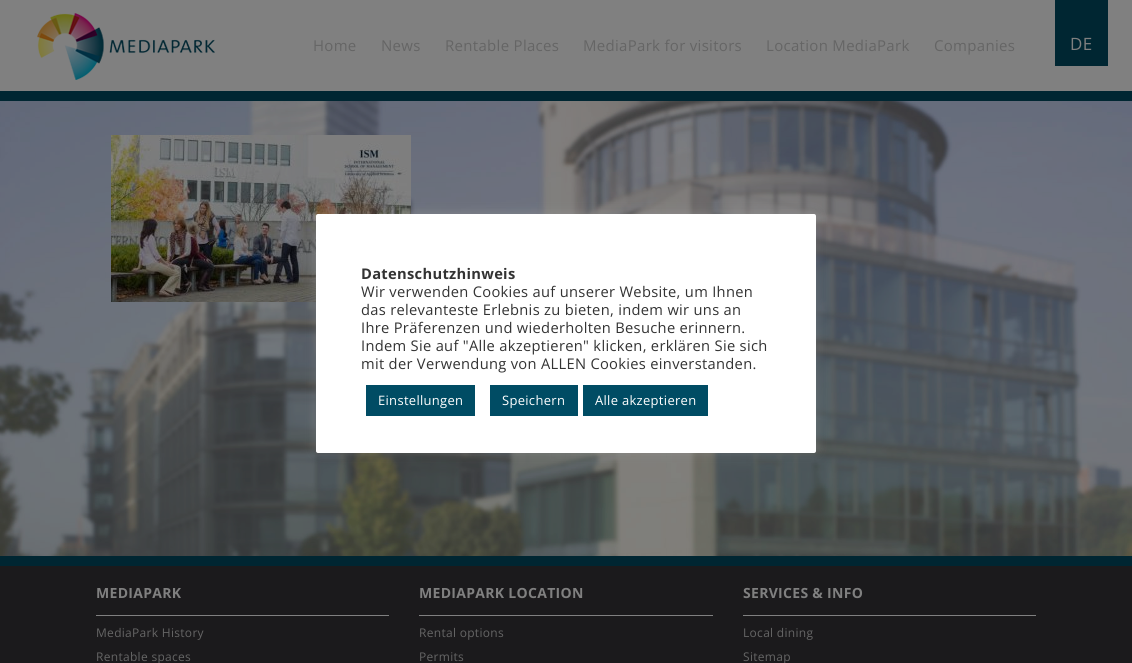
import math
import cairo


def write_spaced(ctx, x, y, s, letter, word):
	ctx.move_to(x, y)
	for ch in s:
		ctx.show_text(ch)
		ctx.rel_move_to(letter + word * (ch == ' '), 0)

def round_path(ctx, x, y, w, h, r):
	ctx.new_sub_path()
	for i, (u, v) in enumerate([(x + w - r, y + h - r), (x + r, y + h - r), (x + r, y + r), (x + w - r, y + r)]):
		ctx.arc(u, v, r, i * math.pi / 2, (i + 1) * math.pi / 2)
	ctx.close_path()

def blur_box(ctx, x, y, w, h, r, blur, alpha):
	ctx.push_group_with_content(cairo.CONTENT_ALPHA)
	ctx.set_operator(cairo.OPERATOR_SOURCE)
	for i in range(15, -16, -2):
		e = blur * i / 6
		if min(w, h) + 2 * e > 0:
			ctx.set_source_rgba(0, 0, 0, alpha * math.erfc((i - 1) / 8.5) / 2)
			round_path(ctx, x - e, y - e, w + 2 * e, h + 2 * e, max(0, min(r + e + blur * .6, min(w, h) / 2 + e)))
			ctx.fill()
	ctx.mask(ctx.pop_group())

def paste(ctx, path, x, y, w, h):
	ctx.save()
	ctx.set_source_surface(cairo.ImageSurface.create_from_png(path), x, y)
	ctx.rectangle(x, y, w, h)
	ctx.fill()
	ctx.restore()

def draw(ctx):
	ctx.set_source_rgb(1, 1, 1)
	ctx.paint()
	paste(ctx, 'media/1.png', 0, 101, 1132, 455)
	ctx.set_source_rgb(0.502, 0.502, 0.502)
	ctx.rectangle(0, 0, 1132, 91)
	ctx.fill()
	ctx.set_source_rgb(0, 0.149, 0.196)
	ctx.rectangle(0, 91, 1132, 10)
	ctx.fill()
	paste(ctx, 'media/2.png', 37, 13, 178, 67)
	ctx.select_font_face('Open Sans')
	ctx.set_font_size(15)
	ctx.set_source_rgb(0.396, 0.396, 0.396)
	for x, y, s in [
		(313, 51, 'Home'),
		(381, 51, 'News'),
		(445, 51, 'Rentable Places'),
		(583, 51, 'MediaPark for visitors'),
		(766, 51, 'Location MediaPark'),
		(934, 51, 'Companies'),
	]:
		write_spaced(ctx, x, y, s, 0.3, 0)
	ctx.set_source_rgb(0, 0.149, 0.196)
	ctx.rectangle(1055, 0, 53, 66)
	ctx.fill()
	ctx.set_font_size(17)
	ctx.set_source_rgb(0.502, 0.502, 0.502)
	write_spaced(ctx, 1070, 50, 'DE', 0.3, 0)
	paste(ctx, 'media/3.png', 111, 135, 300, 167)
	ctx.set_source_rgb(0.106, 0.102, 0.11)
	ctx.rectangle(0, 566, 1132, 97)
	ctx.fill()
	ctx.set_source_rgb(0, 0.149, 0.196)
	ctx.rectangle(0, 556, 1132, 10)
	ctx.fill()
	ctx.select_font_face('Open Sans', cairo.FONT_SLANT_NORMAL, cairo.FONT_WEIGHT_BOLD)
	ctx.set_font_size(14)
	ctx.set_source_rgb(0.502, 0.502, 0.502)
	write_spaced(ctx, 96, 598, 'MEDIAPARK', 0.3, 0)
	ctx.rectangle(96, 615, 293, 1)
	ctx.fill()
	ctx.select_font_face('Open Sans')
	ctx.set_font_size(12)
	ctx.set_source_rgb(0.396, 0.396, 0.396)
	write_spaced(ctx, 96, 637, 'MediaPark History', 0.3, 0)
	write_spaced(ctx, 96, 661, 'Rentable spaces', 0.3, 0)
	ctx.select_font_face('Open Sans', cairo.FONT_SLANT_NORMAL, cairo.FONT_WEIGHT_BOLD)
	ctx.set_font_size(14)
	ctx.set_source_rgb(0.502, 0.502, 0.502)
	write_spaced(ctx, 419, 598, 'MEDIAPARK LOCATION', 0.3, 0)
	ctx.rectangle(419, 615, 294, 1)
	ctx.fill()
	ctx.select_font_face('Open Sans')
	ctx.set_font_size(12)
	ctx.set_source_rgb(0.396, 0.396, 0.396)
	write_spaced(ctx, 419, 637, 'Rental options', 0.3, 0)
	write_spaced(ctx, 419, 661, 'Permits', 0.3, 0)
	ctx.select_font_face('Open Sans', cairo.FONT_SLANT_NORMAL, cairo.FONT_WEIGHT_BOLD)
	ctx.set_font_size(14)
	ctx.set_source_rgb(0.502, 0.502, 0.502)
	write_spaced(ctx, 743, 598, 'SERVICES & INFO', 0.3, 0)
	ctx.rectangle(743, 615, 293, 1)
	ctx.fill()
	ctx.select_font_face('Open Sans')
	ctx.set_font_size(12)
	ctx.set_source_rgb(0.396, 0.396, 0.396)
	write_spaced(ctx, 743, 637, 'Local dining', 0.3, 0)
	write_spaced(ctx, 743, 661, 'Sitemap', 0.3, 0)
	ctx.set_source_rgb(0.675, 0.671, 0.671)
	blur_box(ctx, 316, 213, 500, 239, 2, 5, 0.3)
	ctx.set_source_rgb(1, 1, 1)
	round_path(ctx, 316, 214, 500, 239, 2)
	ctx.fill()
	ctx.select_font_face('Open Sans', cairo.FONT_SLANT_NORMAL, cairo.FONT_WEIGHT_BOLD)
	ctx.set_font_size(14.7)
	ctx.set_source_rgb(0.2, 0.2, 0.2)
	write_spaced(ctx, 361, 279, 'Datenschutzhinweis', 0.3, 0)
	ctx.select_font_face('Open Sans')
	for x, y, s in [
		(361, 297, 'Wir verwenden Cookies auf unserer Website, um Ihnen'),
		(361, 315, 'das relevanteste Erlebnis zu bieten, indem wir uns an'),
		(361, 333, 'Ihre Präferenzen und wiederholten Besuche erinnern.'),
		(361, 351, 'Indem Sie auf "Alle akzeptieren" klicken, erklären Sie sich'),
		(361, 369, 'mit der Verwendung von ALLEN Cookies einverstanden.'),
	]:
		write_spaced(ctx, x, y, s, 0.3, 0)
	ctx.set_source_rgb(0, 0.298, 0.392)
	ctx.rectangle(366, 385, 109, 31)
	ctx.fill()
	ctx.set_font_size(13)
	ctx.set_source_rgb(1, 1, 1)
	write_spaced(ctx, 378, 405, 'Einstellungen', 0.3, 0)
	ctx.set_source_rgb(0, 0.298, 0.392)
	ctx.rectangle(490, 385, 88, 31)
	ctx.fill()
	ctx.set_source_rgb(1, 1, 1)
	write_spaced(ctx, 502, 405, 'Speichern', 0.3, 0)
	ctx.set_source_rgb(0, 0.298, 0.392)
	ctx.rectangle(583, 385, 125, 31)
	ctx.fill()
	ctx.set_source_rgb(1, 1, 1)
	write_spaced(ctx, 595, 405, 'Alle akzeptieren', 0.3, 0)


surface = cairo.ImageSurface(cairo.FORMAT_RGB24, 1132, 663)
ctx = cairo.Context(surface)
options = cairo.FontOptions()
options.set_hint_metrics(cairo.HINT_METRICS_OFF)
options.set_hint_style(cairo.HINT_STYLE_NONE)
ctx.set_font_options(options)
ctx.set_miter_limit(4)
draw(ctx)
surface.write_to_png('image.png')
